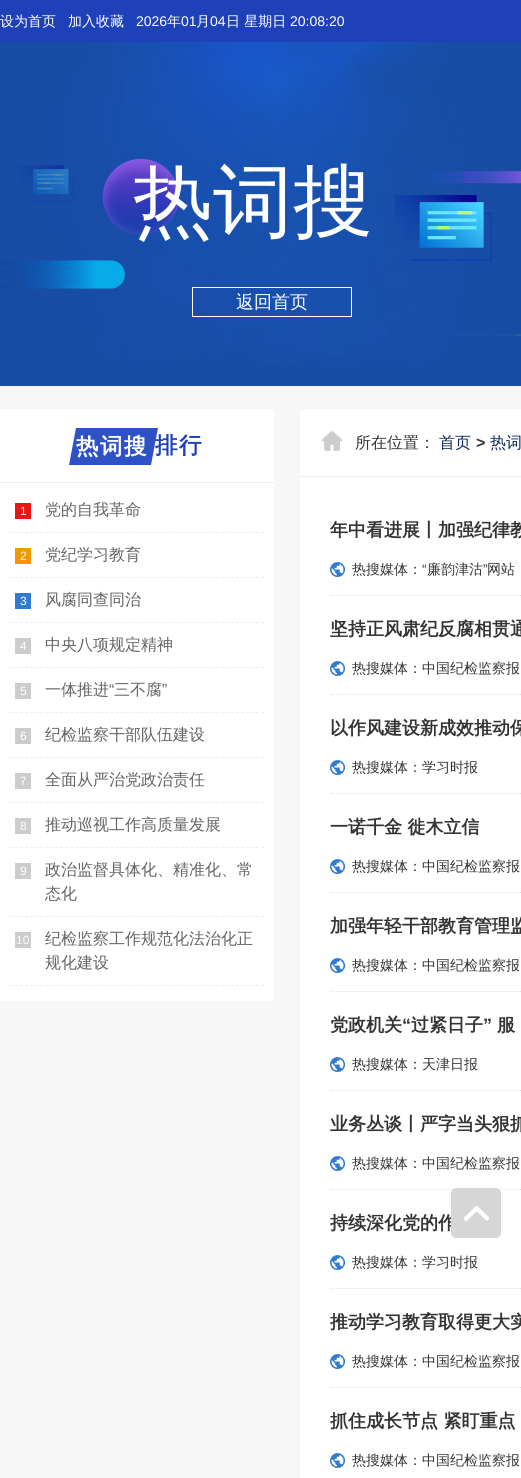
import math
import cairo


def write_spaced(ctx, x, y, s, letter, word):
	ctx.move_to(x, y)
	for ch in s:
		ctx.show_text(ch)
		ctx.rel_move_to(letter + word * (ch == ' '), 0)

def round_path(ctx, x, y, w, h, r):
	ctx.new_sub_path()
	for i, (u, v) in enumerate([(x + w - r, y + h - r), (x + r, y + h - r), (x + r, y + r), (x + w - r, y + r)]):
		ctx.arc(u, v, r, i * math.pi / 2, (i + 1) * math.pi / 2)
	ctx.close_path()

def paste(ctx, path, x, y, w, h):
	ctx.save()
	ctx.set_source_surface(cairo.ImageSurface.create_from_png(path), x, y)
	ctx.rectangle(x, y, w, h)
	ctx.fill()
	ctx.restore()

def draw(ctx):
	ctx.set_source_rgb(0.965, 0.965, 0.965)
	ctx.paint()
	ctx.set_source_rgb(0.118, 0.255, 0.725)
	ctx.rectangle(0, 0, 521, 42)
	ctx.fill()
	ctx.select_font_face('WenQuanYi Zen Hei Medium')
	ctx.set_font_size(14)
	ctx.set_source_rgb(1, 1, 1)
	ctx.move_to(0, 26)
	ctx.show_text('设为首页')
	ctx.move_to(68, 26)
	ctx.show_text('加入收藏')
	ctx.select_font_face('Liberation Sans')
	ctx.move_to(136, 26)
	ctx.show_text('2026')
	ctx.select_font_face('WenQuanYi Zen Hei Medium')
	ctx.move_to(167, 26)
	ctx.show_text('年')
	ctx.select_font_face('Liberation Sans')
	ctx.move_to(181, 26)
	ctx.show_text('01')
	ctx.select_font_face('WenQuanYi Zen Hei Medium')
	ctx.move_to(196, 26)
	ctx.show_text('月')
	ctx.select_font_face('Liberation Sans')
	ctx.move_to(210, 26)
	ctx.show_text('04')
	ctx.select_font_face('WenQuanYi Zen Hei Medium')
	ctx.move_to(226, 26)
	ctx.show_text('日 星期日')
	ctx.select_font_face('Liberation Sans')
	ctx.move_to(290, 26)
	ctx.show_text('20:08:20')
	ctx.set_source_rgb(0.094, 0.294, 0.643)
	ctx.rectangle(0, 368, 521, 18)
	ctx.fill()
	paste(ctx, 'media/1.png', 0, 42, 521, 326)
	ctx.select_font_face('WenQuanYi Zen Hei Medium')
	ctx.set_font_size(80)
	ctx.set_source_rgb(1, 1, 1)
	ctx.move_to(133, 229)
	ctx.show_text('热词搜')
	ctx.rectangle(192.5, 287.5, 159, 29)
	ctx.set_line_width(1)
	ctx.stroke()
	ctx.set_font_size(18)
	ctx.move_to(236, 308)
	ctx.show_text('返回首页')
	ctx.rectangle(0, 410, 274, 591)
	ctx.fill()
	ctx.set_source_rgb(0.933, 0.933, 0.933)
	ctx.rectangle(0, 482, 274, 1)
	ctx.fill()
	ctx.select_font_face('WenQuanYi Zen Hei', cairo.FONT_SLANT_NORMAL, cairo.FONT_WEIGHT_BOLD)
	ctx.set_font_size(22.5)
	ctx.set_source_rgb(0.118, 0.255, 0.725)
	write_spaced(ctx, 155, 453, '排行', 1.5, 0)
	ctx.set_source_rgb(0.184, 0.318, 0.776)
	ctx.new_path()
	ctx.move_to(76, 428)
	ctx.line_to(158, 428)
	ctx.line_to(151, 465)
	ctx.line_to(69, 465)
	ctx.close_path()
	ctx.fill()
	ctx.set_source_rgb(1, 1, 1)
	write_spaced(ctx, 76, 454, '热词搜', 1.5, 0)
	ctx.new_path()
	ctx.move_to(10, 532.5)
	ctx.line_to(264, 532.5)
	ctx.set_source_rgb(0.933, 0.933, 0.933)
	ctx.set_dash([3, 2.02])
	ctx.stroke()
	ctx.set_source_rgb(0.918, 0.082, 0.082)
	ctx.rectangle(15, 503, 16, 16)
	ctx.fill()
	ctx.select_font_face('Liberation Sans')
	ctx.set_font_size(12)
	ctx.set_source_rgb(1, 1, 1)
	ctx.move_to(20, 515)
	ctx.show_text('1')
	ctx.select_font_face('WenQuanYi Zen Hei Medium')
	ctx.set_font_size(16)
	ctx.set_source_rgb(0.388, 0.388, 0.388)
	ctx.move_to(45, 515)
	ctx.show_text('党的自我革命')
	ctx.new_path()
	ctx.move_to(10, 577.5)
	ctx.line_to(264, 577.5)
	ctx.set_source_rgb(0.933, 0.933, 0.933)
	ctx.stroke()
	ctx.set_source_rgb(0.945, 0.6, 0)
	ctx.rectangle(15, 548, 16, 16)
	ctx.fill()
	ctx.select_font_face('Liberation Sans')
	ctx.set_font_size(12)
	ctx.set_source_rgb(1, 1, 1)
	ctx.move_to(20, 560)
	ctx.show_text('2')
	ctx.select_font_face('WenQuanYi Zen Hei Medium')
	ctx.set_font_size(16)
	ctx.set_source_rgb(0.388, 0.388, 0.388)
	ctx.move_to(45, 560)
	ctx.show_text('党纪学习教育')
	ctx.new_path()
	ctx.move_to(10, 622.5)
	ctx.line_to(264, 622.5)
	ctx.set_source_rgb(0.933, 0.933, 0.933)
	ctx.stroke()
	ctx.set_source_rgb(0.192, 0.482, 0.812)
	ctx.rectangle(15, 593, 16, 16)
	ctx.fill()
	ctx.select_font_face('Liberation Sans')
	ctx.set_font_size(12)
	ctx.set_source_rgb(1, 1, 1)
	ctx.move_to(20, 605)
	ctx.show_text('3')
	ctx.select_font_face('WenQuanYi Zen Hei Medium')
	ctx.set_font_size(16)
	ctx.set_source_rgb(0.388, 0.388, 0.388)
	ctx.move_to(45, 605)
	ctx.show_text('风腐同查同治')
	ctx.new_path()
	ctx.move_to(10, 667.5)
	ctx.line_to(264, 667.5)
	ctx.set_source_rgb(0.933, 0.933, 0.933)
	ctx.stroke()
	ctx.set_source_rgb(0.8, 0.8, 0.8)
	ctx.rectangle(15, 638, 16, 16)
	ctx.fill()
	ctx.select_font_face('Liberation Sans')
	ctx.set_font_size(12)
	ctx.set_source_rgb(1, 1, 1)
	ctx.move_to(20, 650)
	ctx.show_text('4')
	ctx.select_font_face('WenQuanYi Zen Hei Medium')
	ctx.set_font_size(16)
	ctx.set_source_rgb(0.388, 0.388, 0.388)
	ctx.move_to(45, 650)
	ctx.show_text('中央八项规定精神')
	ctx.new_path()
	ctx.move_to(10, 712.5)
	ctx.line_to(264, 712.5)
	ctx.set_source_rgb(0.933, 0.933, 0.933)
	ctx.stroke()
	ctx.set_source_rgb(0.8, 0.8, 0.8)
	ctx.rectangle(15, 683, 16, 16)
	ctx.fill()
	ctx.select_font_face('Liberation Sans')
	ctx.set_font_size(12)
	ctx.set_source_rgb(1, 1, 1)
	ctx.move_to(20, 695)
	ctx.show_text('5')
	ctx.select_font_face('WenQuanYi Zen Hei Medium')
	ctx.set_font_size(16)
	ctx.set_source_rgb(0.388, 0.388, 0.388)
	ctx.move_to(45, 695)
	ctx.show_text('一体推进')
	ctx.select_font_face('Liberation Sans')
	ctx.move_to(109, 695)
	ctx.show_text('“')
	ctx.select_font_face('WenQuanYi Zen Hei Medium')
	ctx.move_to(114, 695)
	ctx.show_text('三不腐')
	ctx.select_font_face('Liberation Sans')
	ctx.move_to(162, 695)
	ctx.show_text('”')
	ctx.new_path()
	ctx.move_to(10, 757.5)
	ctx.line_to(264, 757.5)
	ctx.set_source_rgb(0.933, 0.933, 0.933)
	ctx.stroke()
	ctx.set_source_rgb(0.8, 0.8, 0.8)
	ctx.rectangle(15, 728, 16, 16)
	ctx.fill()
	ctx.set_font_size(12)
	ctx.set_source_rgb(1, 1, 1)
	ctx.move_to(20, 740)
	ctx.show_text('6')
	ctx.select_font_face('WenQuanYi Zen Hei Medium')
	ctx.set_font_size(16)
	ctx.set_source_rgb(0.388, 0.388, 0.388)
	ctx.move_to(45, 740)
	ctx.show_text('纪检监察干部队伍建设')
	ctx.new_path()
	ctx.move_to(10, 802.5)
	ctx.line_to(264, 802.5)
	ctx.set_source_rgb(0.933, 0.933, 0.933)
	ctx.stroke()
	ctx.set_source_rgb(0.8, 0.8, 0.8)
	ctx.rectangle(15, 773, 16, 16)
	ctx.fill()
	ctx.select_font_face('Liberation Sans')
	ctx.set_font_size(12)
	ctx.set_source_rgb(1, 1, 1)
	ctx.move_to(20, 785)
	ctx.show_text('7')
	ctx.select_font_face('WenQuanYi Zen Hei Medium')
	ctx.set_font_size(16)
	ctx.set_source_rgb(0.388, 0.388, 0.388)
	ctx.move_to(45, 785)
	ctx.show_text('全面从严治党政治责任')
	ctx.new_path()
	ctx.move_to(10, 847.5)
	ctx.line_to(264, 847.5)
	ctx.set_source_rgb(0.933, 0.933, 0.933)
	ctx.stroke()
	ctx.set_source_rgb(0.8, 0.8, 0.8)
	ctx.rectangle(15, 818, 16, 16)
	ctx.fill()
	ctx.select_font_face('Liberation Sans')
	ctx.set_font_size(12)
	ctx.set_source_rgb(1, 1, 1)
	ctx.move_to(20, 830)
	ctx.show_text('8')
	ctx.select_font_face('WenQuanYi Zen Hei Medium')
	ctx.set_font_size(16)
	ctx.set_source_rgb(0.388, 0.388, 0.388)
	ctx.move_to(45, 830)
	ctx.show_text('推动巡视工作高质量发展')
	ctx.new_path()
	ctx.move_to(10, 916.5)
	ctx.line_to(264, 916.5)
	ctx.set_source_rgb(0.933, 0.933, 0.933)
	ctx.stroke()
	ctx.set_source_rgb(0.8, 0.8, 0.8)
	ctx.rectangle(15, 863, 16, 16)
	ctx.fill()
	ctx.select_font_face('Liberation Sans')
	ctx.set_font_size(12)
	ctx.set_source_rgb(1, 1, 1)
	ctx.move_to(20, 875)
	ctx.show_text('9')
	ctx.select_font_face('WenQuanYi Zen Hei Medium')
	ctx.set_font_size(16)
	ctx.set_source_rgb(0.388, 0.388, 0.388)
	ctx.move_to(45, 875)
	ctx.show_text('政治监督具体化、精准化、常')
	ctx.move_to(45, 899)
	ctx.show_text('态化')
	ctx.new_path()
	ctx.move_to(10, 985.5)
	ctx.line_to(264, 985.5)
	ctx.set_source_rgb(0.933, 0.933, 0.933)
	ctx.stroke()
	ctx.set_source_rgb(0.8, 0.8, 0.8)
	ctx.rectangle(15, 932, 16, 16)
	ctx.fill()
	ctx.select_font_face('Liberation Sans')
	ctx.set_font_size(12)
	ctx.set_source_rgb(1, 1, 1)
	ctx.move_to(16, 944)
	ctx.show_text('10')
	ctx.select_font_face('WenQuanYi Zen Hei Medium')
	ctx.set_font_size(16)
	ctx.set_source_rgb(0.388, 0.388, 0.388)
	ctx.move_to(45, 944)
	ctx.show_text('纪检监察工作规范化法治化正')
	ctx.move_to(45, 968)
	ctx.show_text('规化建设')
	ctx.set_source_rgb(1, 1, 1)
	ctx.rectangle(300, 410, 221, 1068)
	ctx.fill()
	paste(ctx, 'media/2.png', 322, 431, 20, 20)
	ctx.set_source_rgb(0.933, 0.933, 0.933)
	ctx.rectangle(300, 476, 221, 1)
	ctx.fill()
	ctx.set_source_rgb(0.2, 0.2, 0.2)
	ctx.move_to(355, 448)
	ctx.show_text('所在位置：')
	ctx.set_source_rgb(0.043, 0.149, 0.357)
	ctx.move_to(439, 448)
	ctx.show_text('首页')
	ctx.select_font_face('Liberation Sans', cairo.FONT_SLANT_NORMAL, cairo.FONT_WEIGHT_BOLD)
	ctx.set_source_rgb(0.2, 0.2, 0.2)
	ctx.move_to(476, 448)
	ctx.show_text('>')
	ctx.select_font_face('WenQuanYi Zen Hei Medium')
	ctx.set_source_rgb(0.043, 0.149, 0.357)
	ctx.move_to(490, 448)
	ctx.show_text('热词')
	ctx.new_path()
	ctx.move_to(330, 595.5)
	ctx.line_to(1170, 595.5)
	ctx.set_source_rgb(0.878, 0.878, 0.878)
	ctx.set_dash([1, 1])
	ctx.stroke()
	ctx.select_font_face('WenQuanYi Zen Hei', cairo.FONT_SLANT_NORMAL, cairo.FONT_WEIGHT_BOLD)
	ctx.set_font_size(18)
	ctx.set_source_rgb(0.2, 0.2, 0.2)
	ctx.move_to(330, 536)
	ctx.show_text('年中看进展丨加强纪律教')
	paste(ctx, 'media/3.png', 330, 562, 15, 15)
	ctx.select_font_face('WenQuanYi Zen Hei Medium')
	ctx.set_font_size(14)
	ctx.move_to(352, 574)
	ctx.show_text('热搜媒体：')
	ctx.select_font_face('Liberation Sans')
	ctx.move_to(422, 574)
	ctx.show_text('“')
	ctx.select_font_face('WenQuanYi Zen Hei Medium')
	ctx.move_to(427, 574)
	ctx.show_text('廉韵津沽')
	ctx.select_font_face('Liberation Sans')
	ctx.move_to(483, 574)
	ctx.show_text('”')
	ctx.select_font_face('WenQuanYi Zen Hei Medium')
	ctx.move_to(487, 574)
	ctx.show_text('网站')
	ctx.new_path()
	ctx.move_to(330, 694.5)
	ctx.line_to(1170, 694.5)
	ctx.set_source_rgb(0.878, 0.878, 0.878)
	ctx.stroke()
	ctx.select_font_face('WenQuanYi Zen Hei', cairo.FONT_SLANT_NORMAL, cairo.FONT_WEIGHT_BOLD)
	ctx.set_font_size(18)
	ctx.set_source_rgb(0.2, 0.2, 0.2)
	ctx.move_to(330, 635)
	ctx.show_text('坚持正风肃纪反腐相贯通')
	paste(ctx, 'media/3.png', 330, 661, 15, 15)
	ctx.select_font_face('WenQuanYi Zen Hei Medium')
	ctx.set_font_size(14)
	ctx.move_to(352, 673)
	ctx.show_text('热搜媒体：中国纪检监察报')
	ctx.new_path()
	ctx.move_to(330, 793.5)
	ctx.line_to(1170, 793.5)
	ctx.set_source_rgb(0.878, 0.878, 0.878)
	ctx.stroke()
	ctx.select_font_face('WenQuanYi Zen Hei', cairo.FONT_SLANT_NORMAL, cairo.FONT_WEIGHT_BOLD)
	ctx.set_font_size(18)
	ctx.set_source_rgb(0.2, 0.2, 0.2)
	ctx.move_to(330, 734)
	ctx.show_text('以作风建设新成效推动保')
	paste(ctx, 'media/3.png', 330, 760, 15, 15)
	ctx.select_font_face('WenQuanYi Zen Hei Medium')
	ctx.set_font_size(14)
	ctx.move_to(352, 772)
	ctx.show_text('热搜媒体：学习时报')
	ctx.new_path()
	ctx.move_to(330, 892.5)
	ctx.line_to(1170, 892.5)
	ctx.set_source_rgb(0.878, 0.878, 0.878)
	ctx.stroke()
	ctx.select_font_face('WenQuanYi Zen Hei', cairo.FONT_SLANT_NORMAL, cairo.FONT_WEIGHT_BOLD)
	ctx.set_font_size(18)
	ctx.set_source_rgb(0.2, 0.2, 0.2)
	ctx.move_to(330, 833)
	ctx.show_text('一诺千金 徙木立信')
	paste(ctx, 'media/3.png', 330, 859, 15, 15)
	ctx.select_font_face('WenQuanYi Zen Hei Medium')
	ctx.set_font_size(14)
	ctx.move_to(352, 871)
	ctx.show_text('热搜媒体：中国纪检监察报')
	ctx.new_path()
	ctx.move_to(330, 991.5)
	ctx.line_to(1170, 991.5)
	ctx.set_source_rgb(0.878, 0.878, 0.878)
	ctx.stroke()
	ctx.select_font_face('WenQuanYi Zen Hei', cairo.FONT_SLANT_NORMAL, cairo.FONT_WEIGHT_BOLD)
	ctx.set_font_size(18)
	ctx.set_source_rgb(0.2, 0.2, 0.2)
	ctx.move_to(330, 932)
	ctx.show_text('加强年轻干部教育管理监')
	paste(ctx, 'media/3.png', 330, 958, 15, 15)
	ctx.select_font_face('WenQuanYi Zen Hei Medium')
	ctx.set_font_size(14)
	ctx.move_to(352, 970)
	ctx.show_text('热搜媒体：中国纪检监察报')
	ctx.new_path()
	ctx.move_to(330, 1090.5)
	ctx.line_to(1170, 1090.5)
	ctx.set_source_rgb(0.878, 0.878, 0.878)
	ctx.stroke()
	ctx.select_font_face('WenQuanYi Zen Hei', cairo.FONT_SLANT_NORMAL, cairo.FONT_WEIGHT_BOLD)
	ctx.set_font_size(18)
	ctx.set_source_rgb(0.2, 0.2, 0.2)
	ctx.move_to(330, 1031)
	ctx.show_text('党政机关')
	ctx.select_font_face('Liberation Sans', cairo.FONT_SLANT_NORMAL, cairo.FONT_WEIGHT_BOLD)
	ctx.move_to(402, 1031)
	ctx.show_text('“')
	ctx.select_font_face('WenQuanYi Zen Hei', cairo.FONT_SLANT_NORMAL, cairo.FONT_WEIGHT_BOLD)
	ctx.move_to(411, 1031)
	ctx.show_text('过紧日子')
	ctx.select_font_face('Liberation Sans', cairo.FONT_SLANT_NORMAL, cairo.FONT_WEIGHT_BOLD)
	ctx.move_to(483, 1031)
	ctx.show_text('”')
	ctx.select_font_face('WenQuanYi Zen Hei', cairo.FONT_SLANT_NORMAL, cairo.FONT_WEIGHT_BOLD)
	ctx.move_to(497, 1031)
	ctx.show_text('服')
	paste(ctx, 'media/3.png', 330, 1057, 15, 15)
	ctx.select_font_face('WenQuanYi Zen Hei Medium')
	ctx.set_font_size(14)
	ctx.move_to(352, 1069)
	ctx.show_text('热搜媒体：天津日报')
	ctx.new_path()
	ctx.move_to(330, 1189.5)
	ctx.line_to(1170, 1189.5)
	ctx.set_source_rgb(0.878, 0.878, 0.878)
	ctx.stroke()
	ctx.select_font_face('WenQuanYi Zen Hei', cairo.FONT_SLANT_NORMAL, cairo.FONT_WEIGHT_BOLD)
	ctx.set_font_size(18)
	ctx.set_source_rgb(0.2, 0.2, 0.2)
	ctx.move_to(330, 1130)
	ctx.show_text('业务丛谈丨严字当头狠抓')
	paste(ctx, 'media/3.png', 330, 1156, 15, 15)
	ctx.select_font_face('WenQuanYi Zen Hei Medium')
	ctx.set_font_size(14)
	ctx.move_to(352, 1168)
	ctx.show_text('热搜媒体：中国纪检监察报')
	ctx.new_path()
	ctx.move_to(330, 1288.5)
	ctx.line_to(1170, 1288.5)
	ctx.set_source_rgb(0.878, 0.878, 0.878)
	ctx.stroke()
	ctx.select_font_face('WenQuanYi Zen Hei', cairo.FONT_SLANT_NORMAL, cairo.FONT_WEIGHT_BOLD)
	ctx.set_font_size(18)
	ctx.set_source_rgb(0.2, 0.2, 0.2)
	ctx.move_to(330, 1229)
	ctx.show_text('持续深化党的作')
	paste(ctx, 'media/3.png', 330, 1255, 15, 15)
	ctx.select_font_face('WenQuanYi Zen Hei Medium')
	ctx.set_font_size(14)
	ctx.move_to(352, 1267)
	ctx.show_text('热搜媒体：学习时报')
	ctx.new_path()
	ctx.move_to(330, 1387.5)
	ctx.line_to(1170, 1387.5)
	ctx.set_source_rgb(0.878, 0.878, 0.878)
	ctx.stroke()
	ctx.select_font_face('WenQuanYi Zen Hei', cairo.FONT_SLANT_NORMAL, cairo.FONT_WEIGHT_BOLD)
	ctx.set_font_size(18)
	ctx.set_source_rgb(0.2, 0.2, 0.2)
	ctx.move_to(330, 1328)
	ctx.show_text('推动学习教育取得更大实')
	paste(ctx, 'media/3.png', 330, 1354, 15, 15)
	ctx.select_font_face('WenQuanYi Zen Hei Medium')
	ctx.set_font_size(14)
	ctx.move_to(352, 1366)
	ctx.show_text('热搜媒体：中国纪检监察报')
	ctx.select_font_face('WenQuanYi Zen Hei', cairo.FONT_SLANT_NORMAL, cairo.FONT_WEIGHT_BOLD)
	ctx.set_font_size(18)
	ctx.move_to(330, 1427)
	ctx.show_text('抓住成长节点 紧盯重点')
	paste(ctx, 'media/3.png', 330, 1453, 15, 15)
	ctx.select_font_face('WenQuanYi Zen Hei Medium')
	ctx.set_font_size(14)
	ctx.move_to(352, 1465)
	ctx.show_text('热搜媒体：中国纪检监察报')
	ctx.set_source_rgb(0.839, 0.839, 0.839)
	round_path(ctx, 451, 1188, 50, 50, 5)
	ctx.fill()
	paste(ctx, 'media/4.png', 464, 1206, 25, 15)


surface = cairo.ImageSurface(cairo.FORMAT_RGB24, 521, 1478)
ctx = cairo.Context(surface)
options = cairo.FontOptions()
options.set_hint_metrics(cairo.HINT_METRICS_OFF)
options.set_hint_style(cairo.HINT_STYLE_NONE)
ctx.set_font_options(options)
ctx.set_miter_limit(4)
draw(ctx)
surface.write_to_png('image.png')
